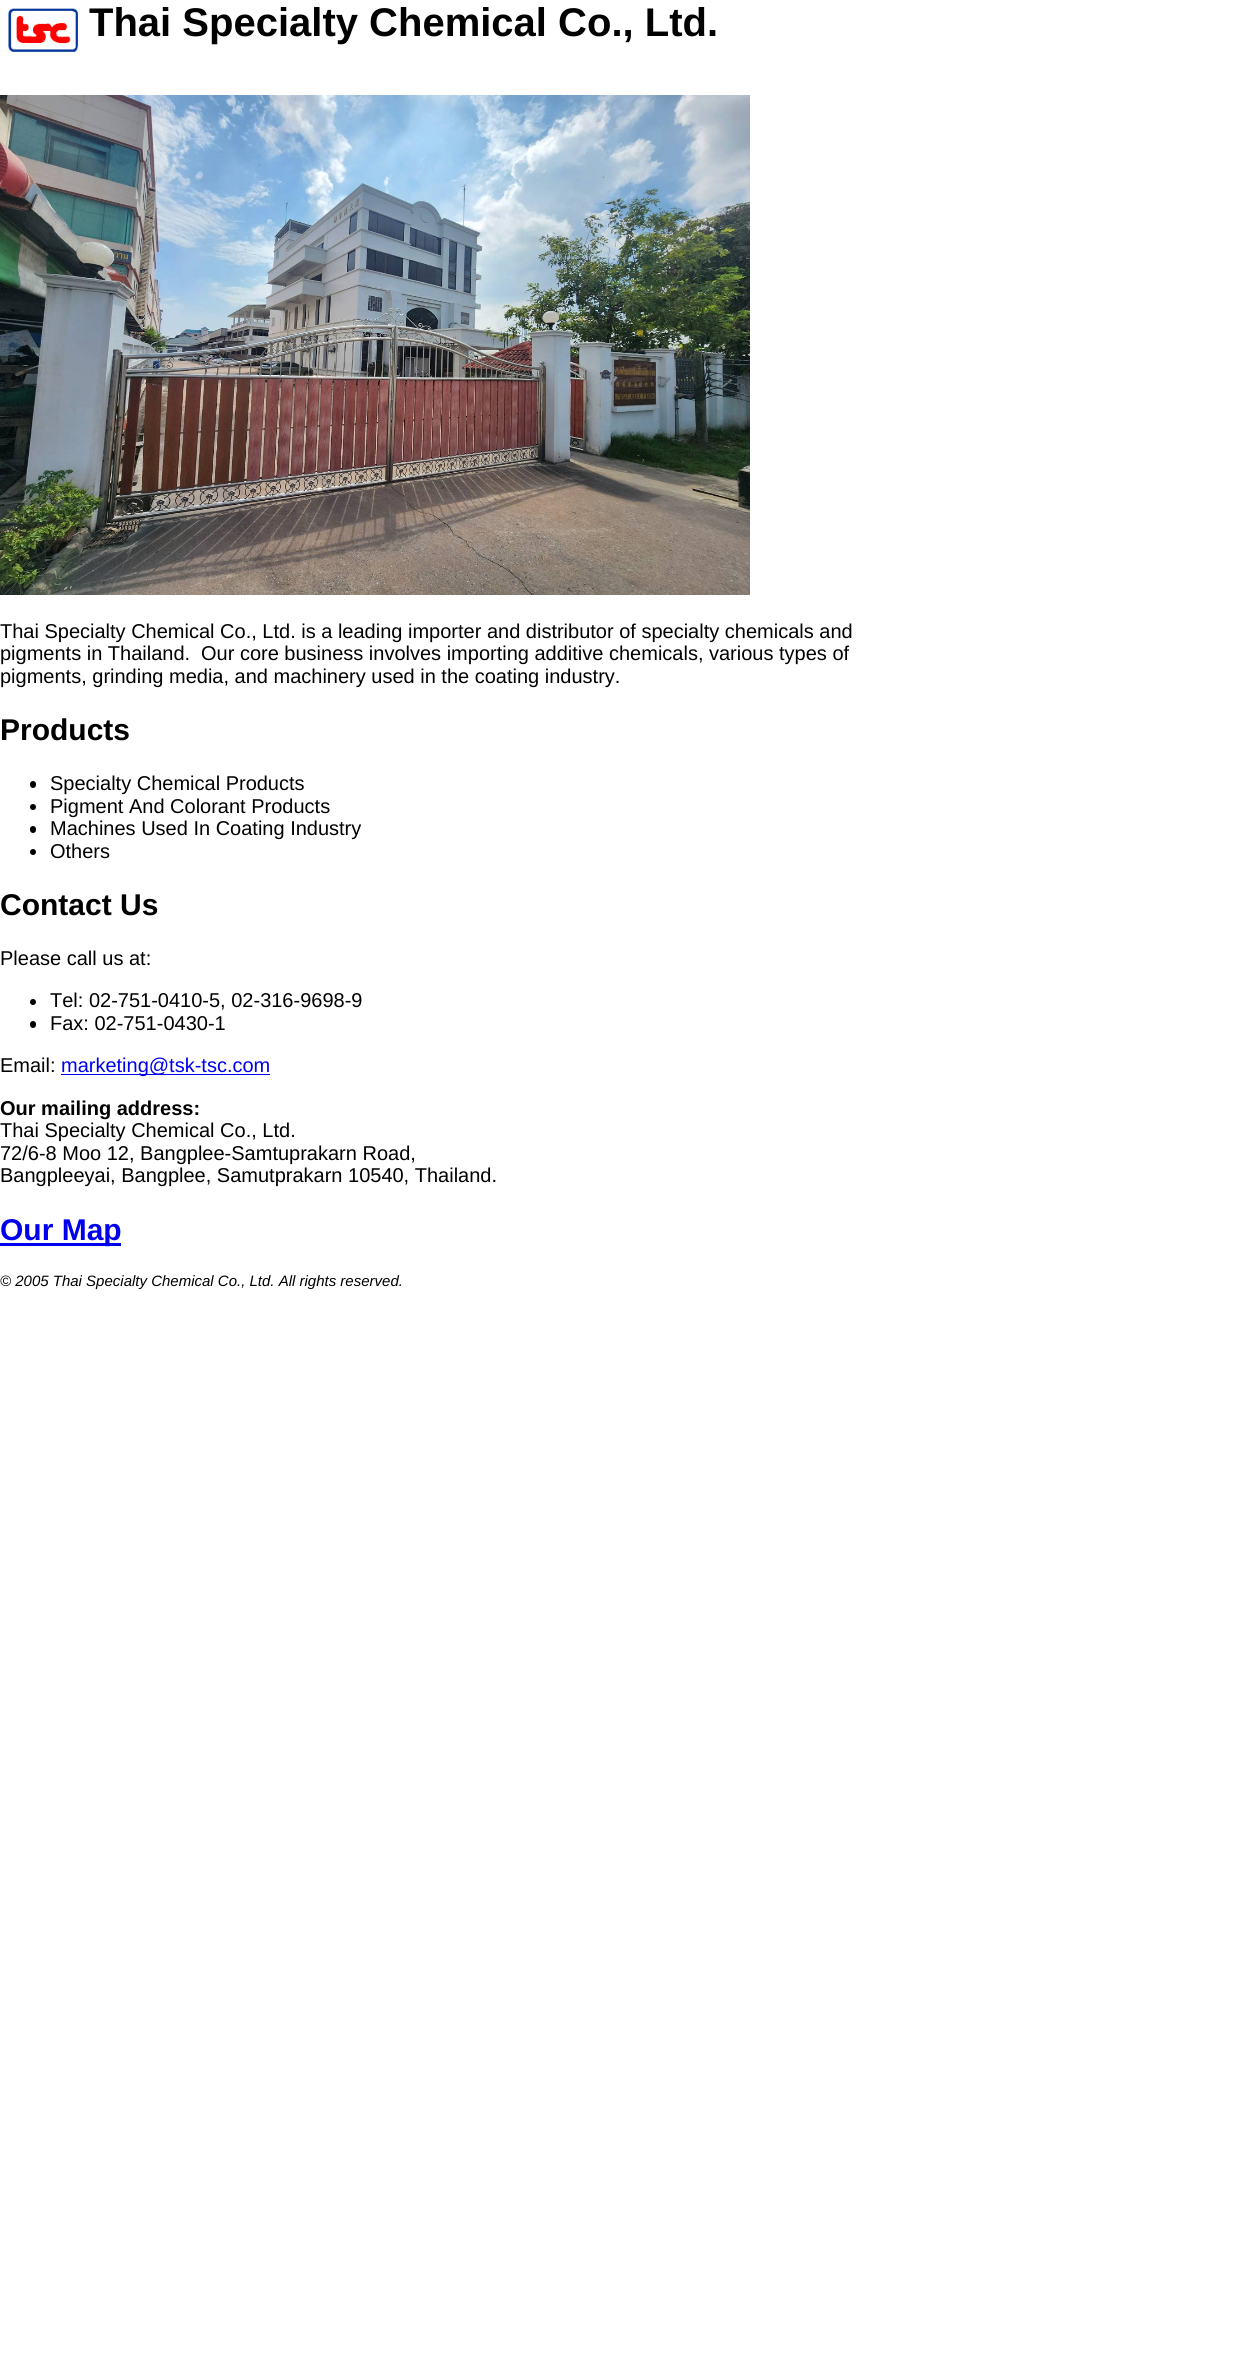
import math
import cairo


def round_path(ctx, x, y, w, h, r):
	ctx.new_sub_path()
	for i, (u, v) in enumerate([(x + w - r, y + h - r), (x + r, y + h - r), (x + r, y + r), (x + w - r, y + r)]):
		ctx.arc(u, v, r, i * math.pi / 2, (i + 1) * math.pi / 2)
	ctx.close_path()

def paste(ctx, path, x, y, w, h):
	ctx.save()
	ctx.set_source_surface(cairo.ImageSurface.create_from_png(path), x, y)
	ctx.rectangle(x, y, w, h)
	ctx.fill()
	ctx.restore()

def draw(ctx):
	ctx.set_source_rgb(1, 1, 1)
	ctx.paint()
	paste(ctx, 'media/1.png', 8, 8, 70, 44)
	ctx.select_font_face('Liberation Sans', cairo.FONT_SLANT_NORMAL, cairo.FONT_WEIGHT_BOLD)
	ctx.set_font_size(40)
	ctx.set_source_rgb(0, 0, 0)
	ctx.move_to(89, 36)
	ctx.show_text('Thai Specialty Chemical Co., Ltd.')
	paste(ctx, 'media/2.png', 0, 95, 750, 500)
	ctx.select_font_face('Liberation Sans')
	ctx.set_font_size(20)
	for x, y, s in [
		(0, 638, 'Thai Specialty Chemical Co., Ltd. is a leading importer and distributor of specialty chemicals and'),
		(0, 660, 'pigments in Thailand.'),
		(201, 660, 'Our core business involves importing additive chemicals, various types of'),
		(0, 683, 'pigments, grinding media, and machinery used in the coating industry.'),
	]:
		ctx.move_to(x, y)
		ctx.show_text(s)
	ctx.select_font_face('Liberation Sans', cairo.FONT_SLANT_NORMAL, cairo.FONT_WEIGHT_BOLD)
	ctx.set_font_size(30)
	ctx.move_to(0, 740)
	ctx.show_text('Products')
	round_path(ctx, 30, 781, 6, 7, 3)
	ctx.fill()
	ctx.select_font_face('Liberation Sans')
	ctx.set_font_size(20)
	ctx.move_to(50, 790)
	ctx.show_text('Specialty Chemical Products')
	ctx.new_path()
	ctx.arc(33, 807, 3, 0, 2 * math.pi)
	ctx.fill()
	ctx.move_to(50, 813)
	ctx.show_text('Pigment And Colorant Products')
	round_path(ctx, 30, 826, 6, 7, 3)
	ctx.fill()
	ctx.move_to(50, 835)
	ctx.show_text('Machines Used In Coating Industry')
	ctx.new_path()
	ctx.arc(33, 852, 3, 0, 2 * math.pi)
	ctx.fill()
	ctx.move_to(50, 858)
	ctx.show_text('Others')
	ctx.select_font_face('Liberation Sans', cairo.FONT_SLANT_NORMAL, cairo.FONT_WEIGHT_BOLD)
	ctx.set_font_size(30)
	ctx.move_to(0, 915)
	ctx.show_text('Contact Us')
	ctx.select_font_face('Liberation Sans')
	ctx.set_font_size(20)
	ctx.move_to(0, 965)
	ctx.show_text('Please call us at:')
	ctx.new_path()
	ctx.arc(33, 1002, 3, 0, 2 * math.pi)
	ctx.fill()
	ctx.move_to(50, 1007)
	ctx.show_text('Tel: 02-751-0410-5, 02-316-9698-9')
	round_path(ctx, 30, 1021, 6, 7, 3)
	ctx.fill()
	ctx.move_to(50, 1030)
	ctx.show_text('Fax: 02-751-0430-1')
	ctx.move_to(0, 1072)
	ctx.show_text('Email:')
	ctx.set_source_rgb(0, 0, 0.933)
	ctx.rectangle(61, 1074, 209, 1)
	ctx.fill()
	ctx.move_to(61, 1072)
	ctx.show_text('marketing@tsk-tsc.com')
	ctx.select_font_face('Liberation Sans', cairo.FONT_SLANT_NORMAL, cairo.FONT_WEIGHT_BOLD)
	ctx.set_source_rgb(0, 0, 0)
	ctx.move_to(0, 1115)
	ctx.show_text('Our mailing address:')
	ctx.select_font_face('Liberation Sans')
	for x, y, s in [
		(0, 1137, 'Thai Specialty Chemical Co., Ltd.'),
		(0, 1160, '72/6-8 Moo 12, Bangplee-Samtuprakarn Road,'),
		(0, 1182, 'Bangpleeyai, Bangplee, Samutprakarn 10540, Thailand.'),
	]:
		ctx.move_to(x, y)
		ctx.show_text(s)
	ctx.set_source_rgb(0, 0, 0.933)
	ctx.rectangle(0, 1243, 121, 3)
	ctx.fill()
	ctx.select_font_face('Liberation Sans', cairo.FONT_SLANT_NORMAL, cairo.FONT_WEIGHT_BOLD)
	ctx.set_font_size(30)
	ctx.move_to(0, 1240)
	ctx.show_text('Our Map')
	ctx.select_font_face('Liberation Sans', cairo.FONT_SLANT_ITALIC)
	ctx.set_font_size(15)
	ctx.set_source_rgb(0, 0, 0)
	ctx.move_to(0, 1286)
	ctx.show_text('© 2005 Thai Specialty Chemical Co., Ltd. All rights reserved.')


surface = cairo.ImageSurface(cairo.FORMAT_RGB24, 1235, 2353)
ctx = cairo.Context(surface)
options = cairo.FontOptions()
options.set_hint_metrics(cairo.HINT_METRICS_OFF)
options.set_hint_style(cairo.HINT_STYLE_NONE)
ctx.set_font_options(options)
ctx.set_miter_limit(4)
draw(ctx)
surface.write_to_png('image.png')
